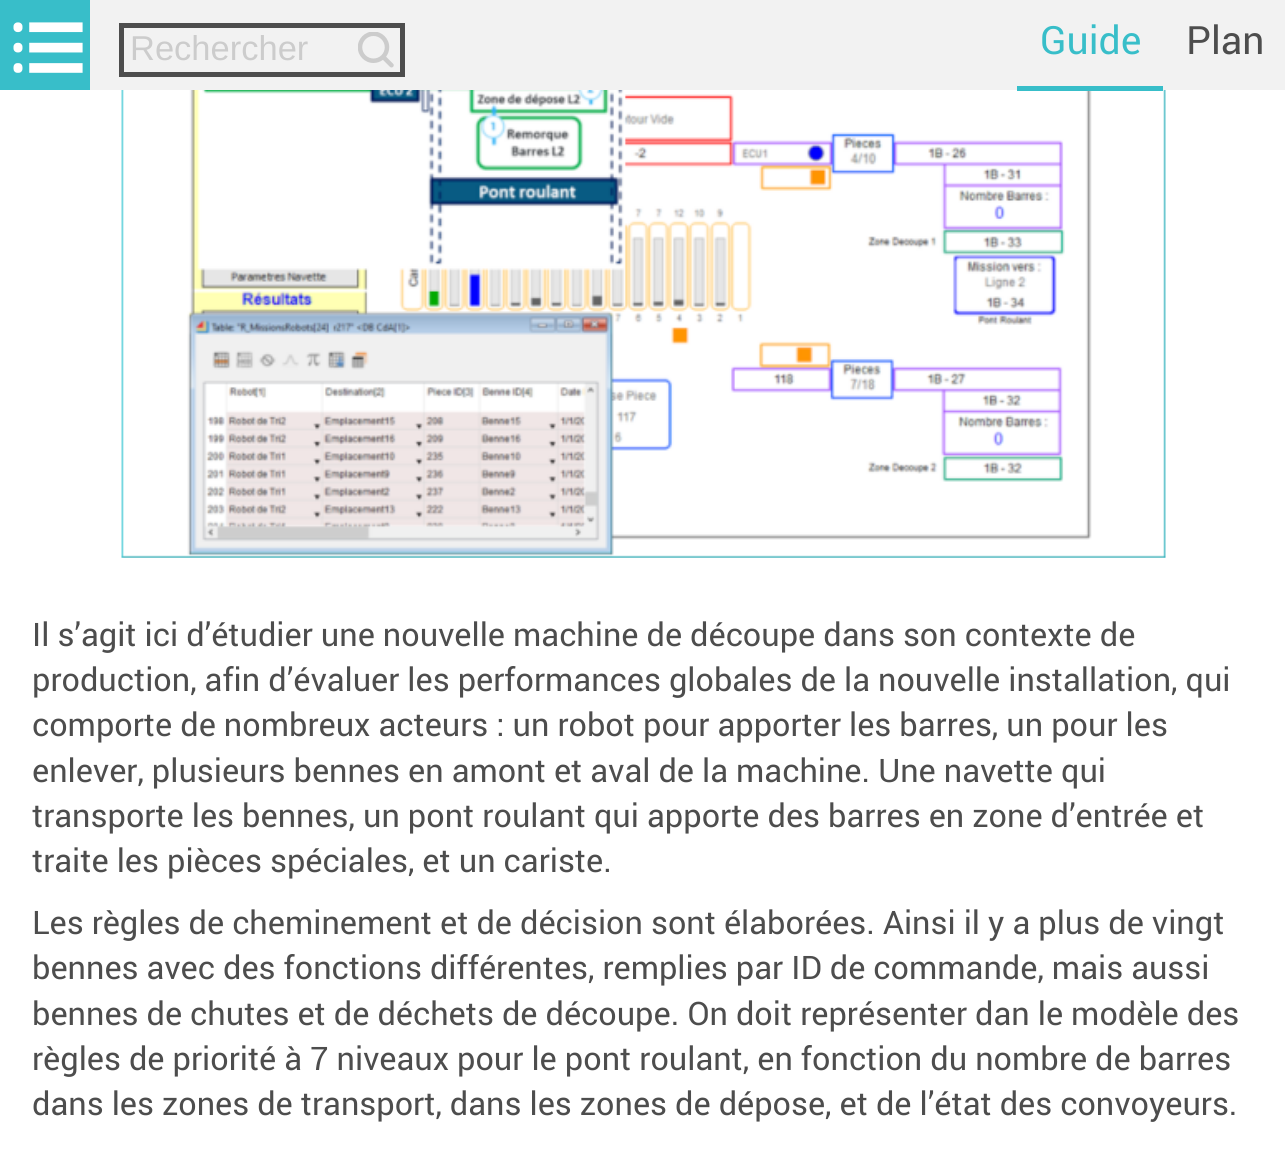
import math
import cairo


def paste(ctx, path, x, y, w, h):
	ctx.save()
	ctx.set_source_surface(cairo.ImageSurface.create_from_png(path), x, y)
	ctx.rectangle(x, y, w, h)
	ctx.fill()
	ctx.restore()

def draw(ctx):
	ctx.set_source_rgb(1, 1, 1)
	ctx.paint()
	ctx.set_source_rgb(0.949, 0.949, 0.949)
	ctx.rectangle(90, 0, 1195, 90)
	ctx.fill()
	ctx.set_source_rgb(0.22, 0.745, 0.788)
	ctx.rectangle(0, 0, 90, 90)
	ctx.fill()
	paste(ctx, 'media/1.png', 13, 22, 70, 51)
	ctx.rectangle(121.5, 25.5, 281, 49)
	ctx.set_source_rgb(0.302, 0.302, 0.302)
	ctx.set_line_width(5)
	ctx.stroke()
	ctx.select_font_face('Liberation Sans')
	ctx.set_font_size(34.5)
	ctx.set_source_rgb(0.8, 0.8, 0.8)
	ctx.move_to(130, 60)
	ctx.show_text('Rechercher')
	paste(ctx, 'media/2.png', 358, 32, 36, 36)
	paste(ctx, 'media/3.png', 121, 90, 1045, 468)
	ctx.set_source_rgb(0.22, 0.745, 0.788)
	ctx.rectangle(1017, 86, 146, 5)
	ctx.fill()
	ctx.select_font_face('Roboto')
	ctx.set_font_size(39)
	ctx.move_to(1040, 54)
	ctx.show_text('Guide')
	ctx.set_source_rgb(0.302, 0.302, 0.302)
	ctx.move_to(1186, 54)
	ctx.show_text('Plan')
	ctx.set_font_size(32.4)
	for x, y, s in [
		(32, 646, 'Il s’agit ici d’étudier une nouvelle machine de découpe dans son contexte de'),
		(32, 691, 'production, afin d’évaluer les performances globales de la nouvelle installation, qui'),
		(32, 736, 'comporte de nombreux acteurs : un robot pour apporter les barres, un pour les'),
		(32, 782, 'enlever, plusieurs bennes en amont et aval de la machine. Une navette qui'),
		(32, 827, 'transporte les bennes, un pont roulant qui apporte des barres en zone d’entrée et'),
		(32, 872, 'traite les pièces spéciales, et un cariste.'),
		(32, 934, 'Les règles de cheminement et de décision sont élaborées. Ainsi il y a plus de vingt'),
		(32, 979, 'bennes avec des fonctions différentes, remplies par ID de commande, mais aussi'),
		(32, 1025, 'bennes de chutes et de déchets de découpe. On doit représenter dan le modèle des'),
		(32, 1070, 'règles de priorité à 7 niveaux pour le pont roulant, en fonction du nombre de barres'),
		(32, 1115, 'dans les zones de transport, dans les zones de dépose, et de l’état des convoyeurs.'),
	]:
		ctx.move_to(x, y)
		ctx.show_text(s)


surface = cairo.ImageSurface(cairo.FORMAT_RGB24, 1285, 1155)
ctx = cairo.Context(surface)
options = cairo.FontOptions()
options.set_hint_metrics(cairo.HINT_METRICS_OFF)
options.set_hint_style(cairo.HINT_STYLE_NONE)
ctx.set_font_options(options)
ctx.set_miter_limit(4)
draw(ctx)
surface.write_to_png('image.png')
